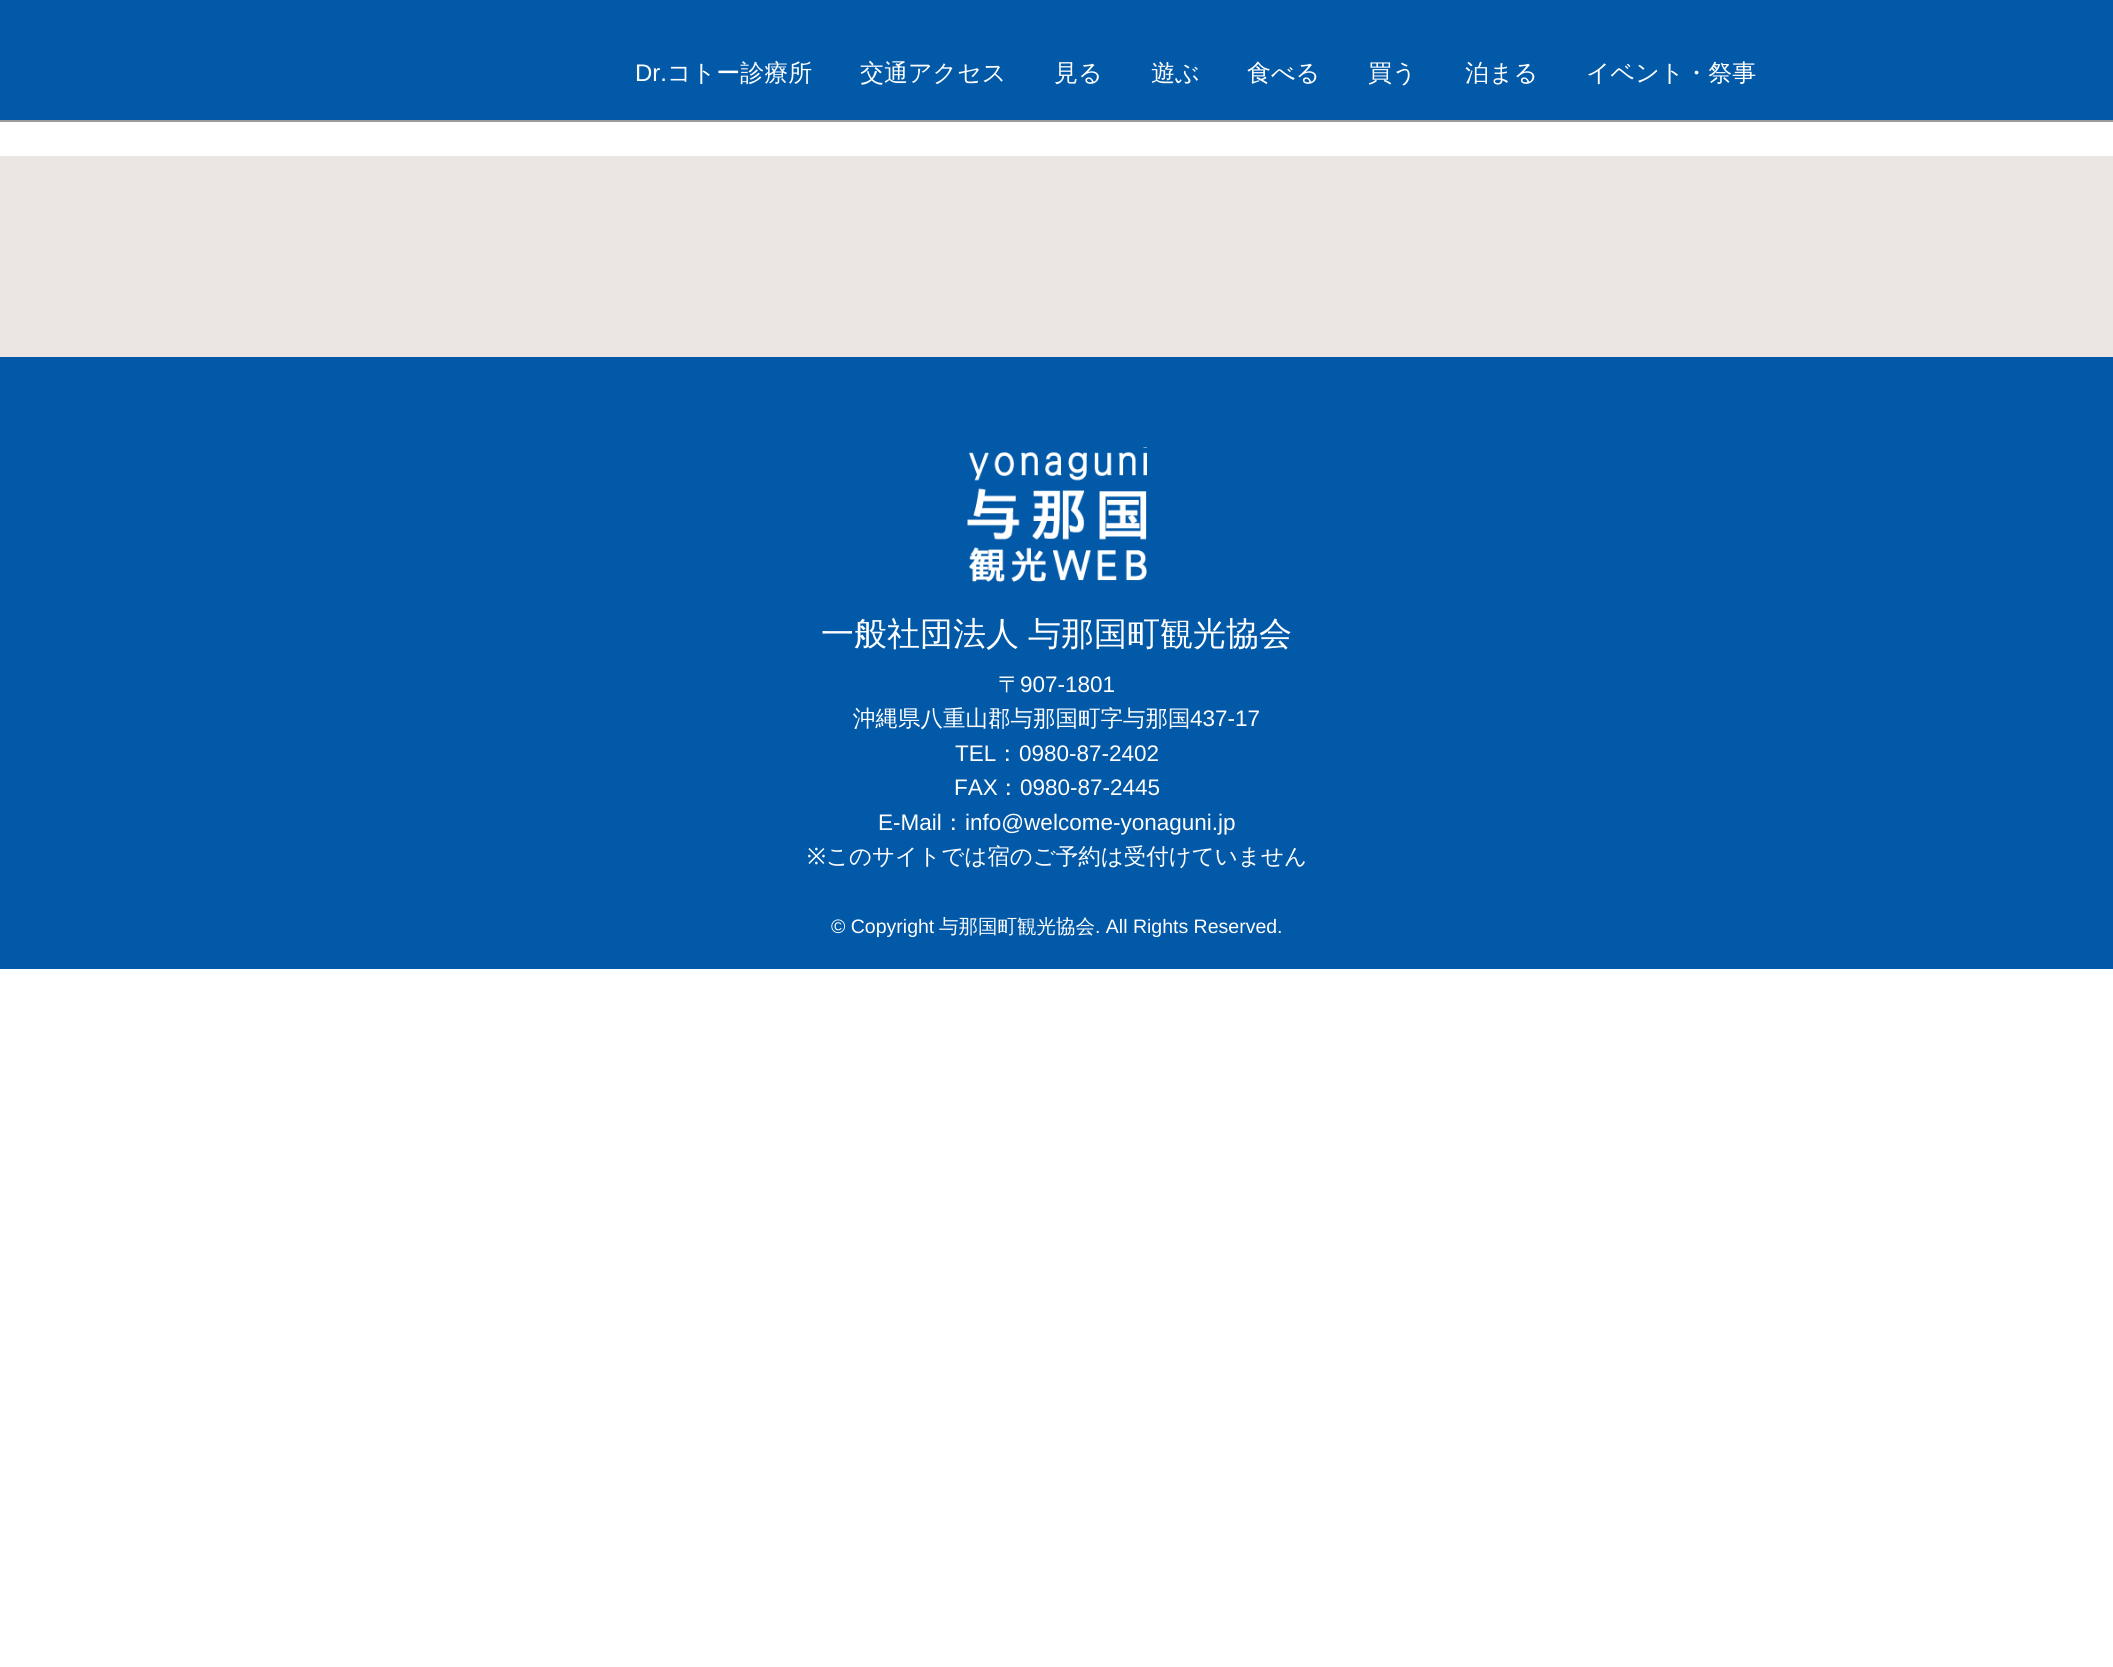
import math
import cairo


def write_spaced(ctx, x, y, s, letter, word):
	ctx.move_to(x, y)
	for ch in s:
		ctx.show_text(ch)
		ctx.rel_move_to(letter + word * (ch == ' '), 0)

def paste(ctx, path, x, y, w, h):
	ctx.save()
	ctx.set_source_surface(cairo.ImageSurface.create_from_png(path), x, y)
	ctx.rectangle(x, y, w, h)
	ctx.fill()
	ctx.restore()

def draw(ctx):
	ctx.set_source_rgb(1, 1, 1)
	ctx.paint()
	ctx.set_source_rgb(0.918, 0.902, 0.89)
	ctx.rectangle(0, 156, 2113, 201)
	ctx.fill()
	ctx.set_source_rgb(0.008, 0.349, 0.659)
	ctx.rectangle(0, 0, 2113, 120)
	ctx.fill()
	ctx.select_font_face('Liberation Sans')
	ctx.set_font_size(24)
	ctx.set_source_rgb(1, 1, 1)
	ctx.move_to(635, 81)
	ctx.show_text('Dr.')
	ctx.select_font_face('WenQuanYi Zen Hei Medium')
	for x, y, s in [
		(667, 81, 'コトー診療所'),
		(860, 81, '交通アクセス'),
		(1054, 81, '見る'),
		(1151, 81, '遊ぶ'),
		(1247, 81, '食べる'),
		(1368, 81, '買う'),
		(1465, 81, '泊まる'),
		(1586, 81, 'イベント・祭事'),
	]:
		ctx.move_to(x, y)
		ctx.show_text(s)
	ctx.set_source_rgb(0.608, 0.608, 0.608)
	ctx.rectangle(0, 120, 2113, 2)
	ctx.fill()
	ctx.set_source_rgb(0.008, 0.349, 0.659)
	ctx.rectangle(0, 357, 2113, 612)
	ctx.fill()
	paste(ctx, 'media/1.png', 967, 447, 180, 135)
	ctx.set_font_size(33)
	ctx.set_source_rgb(1, 1, 1)
	write_spaced(ctx, 821, 645, '一般社団法人 与那国町観光協会', 0, -1)
	ctx.set_font_size(22.5)
	ctx.move_to(998, 692)
	ctx.show_text('〒')
	ctx.select_font_face('Liberation Sans')
	ctx.move_to(1020, 692)
	ctx.show_text('907-1801')
	ctx.select_font_face('WenQuanYi Zen Hei Medium')
	ctx.move_to(853, 726)
	ctx.show_text('沖縄県八重山郡与那国町字与那国')
	ctx.select_font_face('Liberation Sans')
	ctx.move_to(1190, 726)
	ctx.show_text('437-17')
	ctx.move_to(955, 761)
	ctx.show_text('TEL')
	ctx.select_font_face('WenQuanYi Zen Hei Medium')
	ctx.move_to(996, 761)
	ctx.show_text('：')
	ctx.select_font_face('Liberation Sans')
	ctx.move_to(1019, 761)
	ctx.show_text('0980-87-2402')
	ctx.move_to(954, 795)
	ctx.show_text('FAX')
	ctx.select_font_face('WenQuanYi Zen Hei Medium')
	ctx.move_to(997, 795)
	ctx.show_text('：')
	ctx.select_font_face('Liberation Sans')
	ctx.move_to(1020, 795)
	ctx.show_text('0980-87-2445')
	ctx.move_to(878, 830)
	ctx.show_text('E-Mail')
	ctx.select_font_face('WenQuanYi Zen Hei Medium')
	ctx.move_to(942, 830)
	ctx.show_text('：')
	ctx.select_font_face('Liberation Sans')
	ctx.move_to(965, 830)
	ctx.show_text('info@welcome-yonaguni.jp')
	ctx.select_font_face('Noto Sans')
	ctx.move_to(807, 864)
	ctx.show_text('※')
	ctx.select_font_face('WenQuanYi Zen Hei Medium')
	ctx.move_to(826, 864)
	ctx.show_text('このサイトでは宿のご予約は受付けていません')
	ctx.select_font_face('Liberation Sans')
	ctx.set_font_size(19.5)
	ctx.move_to(831, 933)
	ctx.show_text('© Copyright')
	ctx.select_font_face('WenQuanYi Zen Hei Medium')
	ctx.move_to(939, 933)
	ctx.show_text('与那国町観光協会')
	ctx.select_font_face('Liberation Sans')
	ctx.move_to(1095, 933)
	ctx.show_text('. All Rights Reserved.')


surface = cairo.ImageSurface(cairo.FORMAT_RGB24, 2113, 1667)
ctx = cairo.Context(surface)
options = cairo.FontOptions()
options.set_hint_metrics(cairo.HINT_METRICS_OFF)
options.set_hint_style(cairo.HINT_STYLE_NONE)
ctx.set_font_options(options)
ctx.set_miter_limit(4)
draw(ctx)
surface.write_to_png('image.png')
